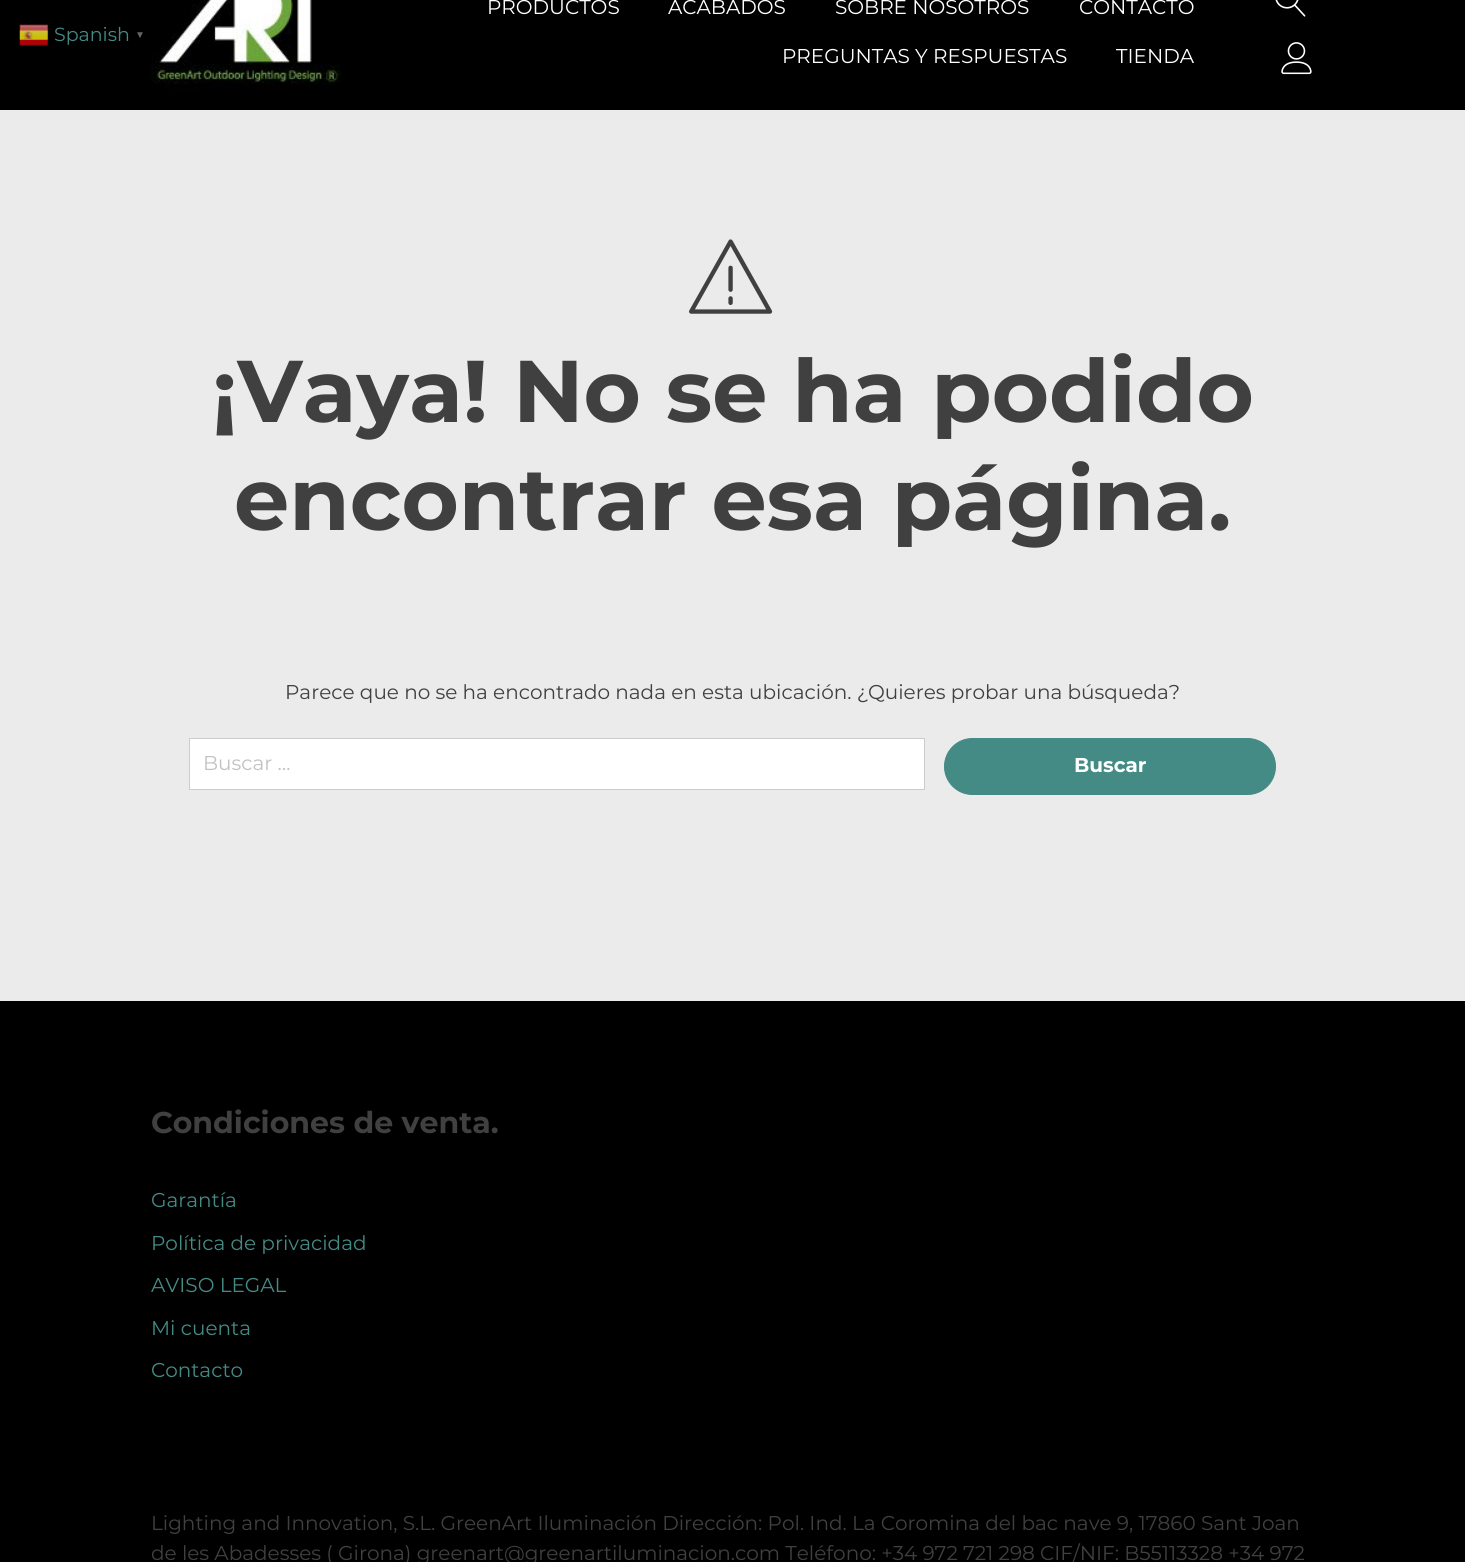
import math
import cairo


def round_path(ctx, x, y, w, h, r):
	ctx.new_sub_path()
	for i, (u, v) in enumerate([(x + w - r, y + h - r), (x + r, y + h - r), (x + r, y + r), (x + w - r, y + r)]):
		ctx.arc(u, v, r, i * math.pi / 2, (i + 1) * math.pi / 2)
	ctx.close_path()

def paste(ctx, path, x, y, w, h):
	ctx.save()
	ctx.set_source_surface(cairo.ImageSurface.create_from_png(path), x, y)
	ctx.rectangle(x, y, w, h)
	ctx.fill()
	ctx.restore()

def draw(ctx):
	ctx.set_source_rgb(0.918, 0.918, 0.918)
	ctx.paint()
	ctx.set_source_rgb(0, 0, 0)
	ctx.rectangle(0, 0, 1465, 110)
	ctx.fill()
	paste(ctx, 'media/1.png', 19, 24, 30, 22)
	ctx.select_font_face('Montserrat')
	ctx.set_font_size(19)
	ctx.set_source_rgb(0.267, 0.541, 0.522)
	ctx.move_to(54, 41)
	ctx.show_text('Spanish')
	ctx.select_font_face('Liberation Sans', cairo.FONT_SLANT_NORMAL, cairo.FONT_WEIGHT_BOLD)
	ctx.set_font_size(10)
	ctx.set_source_rgb(0.4, 0.4, 0.4)
	ctx.move_to(135, 38)
	ctx.show_text('▼')
	paste(ctx, 'media/2.png', 151, 0, 191, 91)
	ctx.select_font_face('Montserrat')
	ctx.set_font_size(20)
	ctx.set_source_rgb(1, 1, 1)
	for x, y, s in [
		(487, 14, 'PRODUCTOS'),
		(668, 14, 'ACABADOS'),
		(835, 14, 'SOBRE NOSOTROS'),
		(1079, 14, 'CONTACTO'),
		(782, 63, 'PREGUNTAS Y RESPUESTAS'),
		(1116, 63, 'TIENDA'),
	]:
		ctx.move_to(x, y)
		ctx.show_text(s)
	paste(ctx, 'media/3.png', 1275, 0, 31, 17)
	paste(ctx, 'media/4.png', 1281, 42, 31, 33)
	paste(ctx, 'media/5.png', 689, 239, 84, 75)
	ctx.select_font_face('Montserrat', cairo.FONT_SLANT_NORMAL, cairo.FONT_WEIGHT_BOLD)
	ctx.set_font_size(87.5)
	ctx.set_source_rgb(0.251, 0.251, 0.251)
	ctx.move_to(212, 422)
	ctx.show_text('¡Vaya! No se ha podido')
	ctx.move_to(234, 530)
	ctx.show_text('encontrar esa página.')
	ctx.select_font_face('Montserrat')
	ctx.set_font_size(20)
	ctx.move_to(285, 699)
	ctx.show_text('Parece que no se ha encontrado nada en esta ubicación. ¿Quieres probar una búsqueda?')
	ctx.set_source_rgb(1, 1, 1)
	ctx.rectangle(189.5, 738.5, 735, 51)
	ctx.fill_preserve()
	ctx.set_source_rgb(0.8, 0.8, 0.8)
	ctx.set_line_width(1)
	ctx.stroke()
	ctx.set_source_rgb(0.761, 0.761, 0.761)
	ctx.move_to(203, 770)
	ctx.show_text('Buscar …')
	ctx.set_source_rgb(0.267, 0.541, 0.522)
	round_path(ctx, 944.5, 738.5, 331, 56, 28)
	ctx.fill_preserve()
	ctx.stroke()
	ctx.select_font_face('Montserrat', cairo.FONT_SLANT_NORMAL, cairo.FONT_WEIGHT_BOLD)
	ctx.set_source_rgb(1, 1, 1)
	ctx.move_to(1074, 772)
	ctx.show_text('Buscar')
	ctx.set_source_rgb(0, 0, 0)
	ctx.rectangle(0, 1001, 1465, 561)
	ctx.fill()
	ctx.set_font_size(30)
	ctx.set_source_rgb(0.251, 0.251, 0.251)
	ctx.move_to(151, 1133)
	ctx.show_text('Condiciones de venta.')
	ctx.select_font_face('Montserrat')
	ctx.set_font_size(20)
	ctx.set_source_rgb(0.267, 0.541, 0.522)
	for x, y, s in [
		(151, 1207, 'Garantía'),
		(151, 1250, 'Política de privacidad'),
		(151, 1292, 'AVISO LEGAL'),
		(151, 1335, 'Mi cuenta'),
		(151, 1377, 'Contacto'),
	]:
		ctx.move_to(x, y)
		ctx.show_text(s)
	ctx.set_source_rgb(0.251, 0.251, 0.251)
	ctx.move_to(151, 1530)
	ctx.show_text('Lighting and Innovation, S.L. GreenArt Iluminación Dirección: Pol. Ind. La Coromina del bac nave 9, 17860 Sant Joan')
	ctx.move_to(151, 1560)
	ctx.show_text('de les Abadesses ( Girona) greenart@greenartiluminacion.com Teléfono: +34 972 721 298 CIF/NIF: B55113328 +34 972')


surface = cairo.ImageSurface(cairo.FORMAT_RGB24, 1465, 1562)
ctx = cairo.Context(surface)
options = cairo.FontOptions()
options.set_hint_metrics(cairo.HINT_METRICS_OFF)
options.set_hint_style(cairo.HINT_STYLE_NONE)
ctx.set_font_options(options)
ctx.set_miter_limit(4)
draw(ctx)
surface.write_to_png('image.png')
